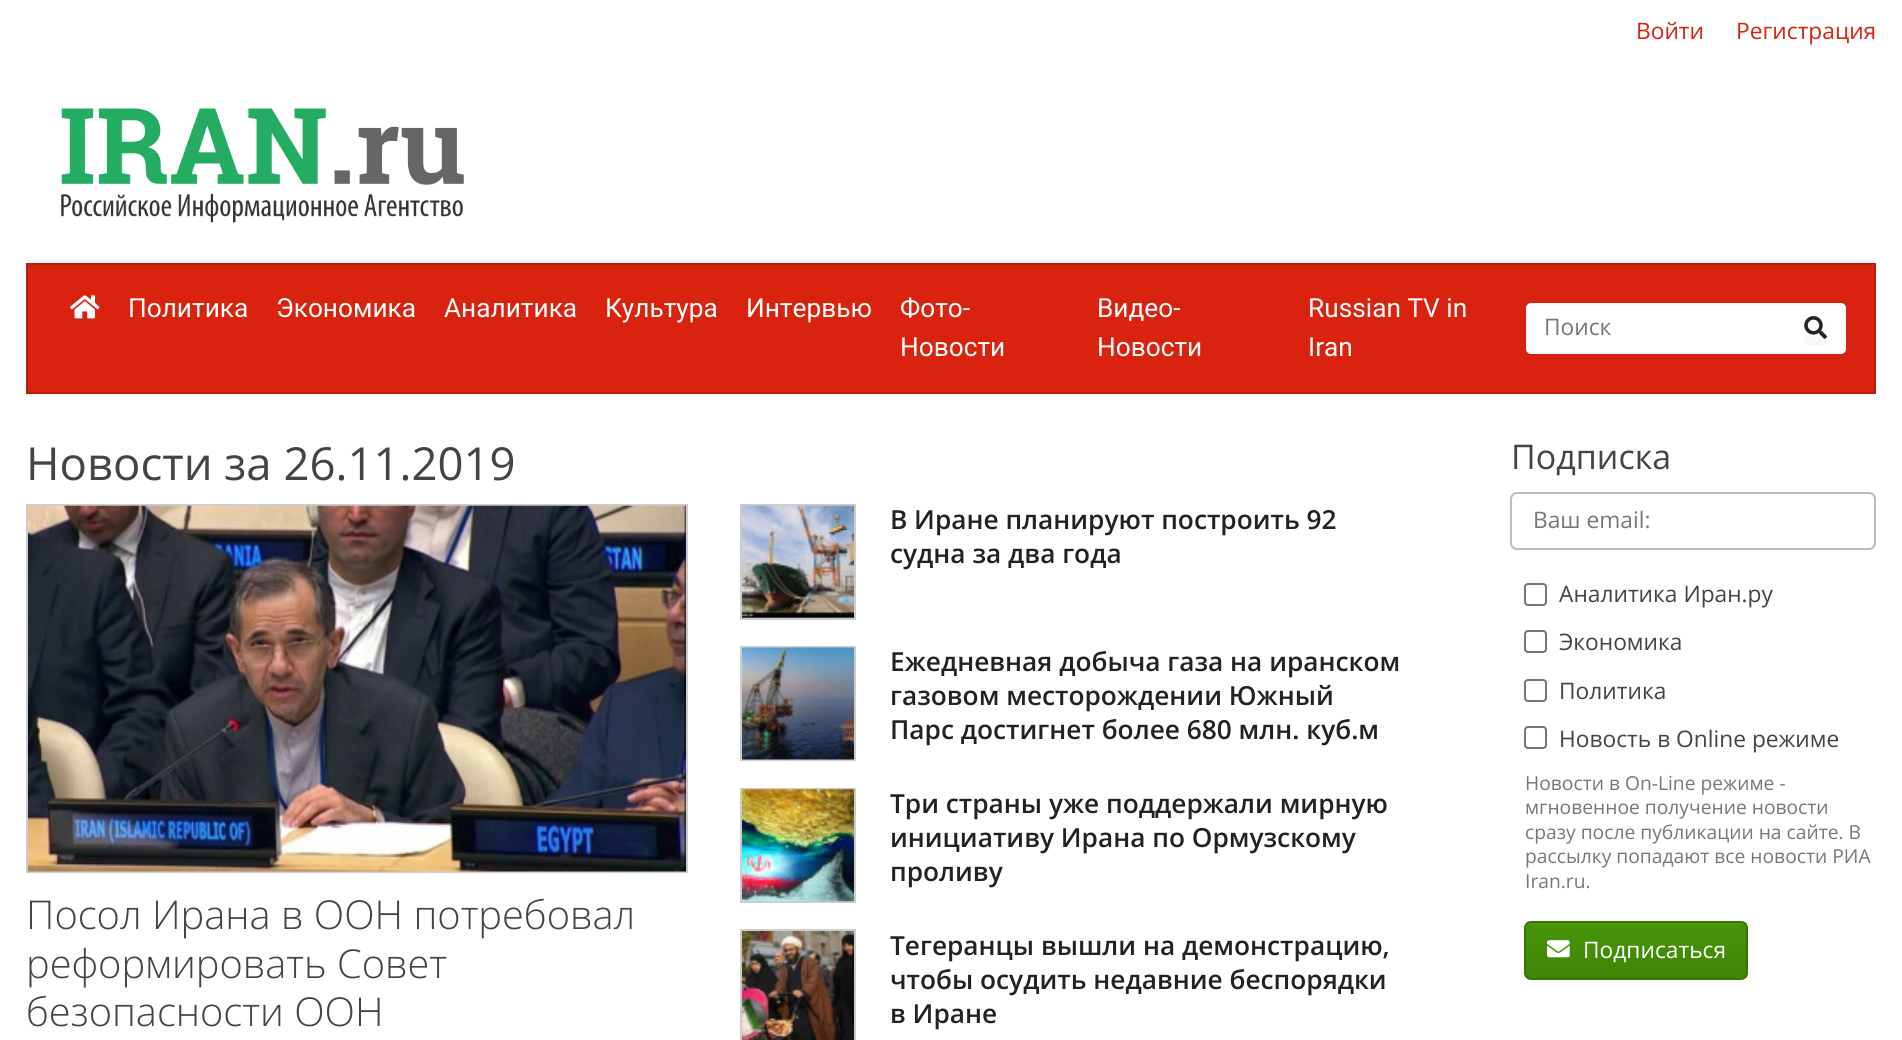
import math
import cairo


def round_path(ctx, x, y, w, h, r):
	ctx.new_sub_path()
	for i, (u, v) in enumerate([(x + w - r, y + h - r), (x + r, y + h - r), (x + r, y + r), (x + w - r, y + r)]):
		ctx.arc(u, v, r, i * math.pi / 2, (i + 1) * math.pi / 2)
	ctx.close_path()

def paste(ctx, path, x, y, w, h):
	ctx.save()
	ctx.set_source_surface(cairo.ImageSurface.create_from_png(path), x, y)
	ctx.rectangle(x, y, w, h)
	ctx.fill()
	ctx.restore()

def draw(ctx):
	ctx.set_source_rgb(1, 1, 1)
	ctx.paint()
	ctx.select_font_face('Open Sans')
	ctx.set_font_size(22.75)
	ctx.set_source_rgb(0.851, 0.137, 0.059)
	ctx.move_to(1636, 39)
	ctx.show_text('Войти')
	ctx.move_to(1736, 39)
	ctx.show_text('Регистрация')
	paste(ctx, 'media/1.png', 61, 108, 403, 115)
	ctx.rectangle(27, 264, 1848, 129)
	ctx.fill_preserve()
	ctx.set_source_rgb(0.729, 0.118, 0.051)
	ctx.stroke()
	paste(ctx, 'media/2.png', 70, 295, 30, 24)
	ctx.select_font_face('Roboto')
	ctx.set_font_size(26.25)
	ctx.set_source_rgb(1, 1, 1)
	for x, y, s in [
		(128, 317, 'Политика'),
		(276, 317, 'Экономика'),
		(444, 317, 'Аналитика'),
		(605, 317, 'Культура'),
		(746, 317, 'Интервью'),
		(900, 317, 'Фото-'),
		(900, 356, 'Новости'),
		(1097, 317, 'Видео-'),
		(1097, 356, 'Новости'),
		(1308, 317, 'Russian TV in'),
		(1308, 356, 'Iran'),
	]:
		ctx.move_to(x, y)
		ctx.show_text(s)
	round_path(ctx, 1526, 303, 320, 51, 5)
	ctx.fill()
	ctx.select_font_face('Open Sans')
	ctx.set_font_size(22.75)
	ctx.set_source_rgb(0.467, 0.467, 0.467)
	ctx.move_to(1544, 335)
	ctx.show_text('Поиск')
	gradient = cairo.LinearGradient(1816, 312, 1816, 345)
	gradient.add_color_stop_rgba(0, 1, 1, 1, 1)
	gradient.add_color_stop_rgba(0.06, 1, 1, 1, 1)
	gradient.add_color_stop_rgba(1, 0.969, 0.969, 0.969, 1)
	ctx.set_source(gradient)
	ctx.rectangle(1804, 324, 23, 21)
	ctx.fill()
	paste(ctx, 'media/3.png', 1804, 316, 23, 23)
	ctx.set_font_size(45.5)
	ctx.set_source_rgb(0.267, 0.267, 0.267)
	ctx.move_to(26, 480)
	ctx.show_text('Новости за 26.11.2019')
	ctx.rectangle(27, 505, 660, 367)
	ctx.set_source_rgb(0.8, 0.8, 0.8)
	ctx.stroke()
	paste(ctx, 'media/4.png', 28, 505, 658, 367)
	ctx.select_font_face('Open Sans Light')
	ctx.set_font_size(39.75)
	ctx.set_source_rgb(0.267, 0.267, 0.267)
	for x, y, s in [
		(26, 929, 'Посол Ирана в ООН потребовал'),
		(26, 978, 'реформировать Совет'),
		(26, 1026, 'безопасности ООН'),
	]:
		ctx.move_to(x, y)
		ctx.show_text(s)
	ctx.rectangle(741, 505, 114, 114)
	ctx.set_source_rgb(0.8, 0.8, 0.8)
	ctx.stroke()
	paste(ctx, 'media/5.png', 742, 505, 112, 113)
	ctx.select_font_face('Open Sans SemiBold')
	ctx.set_font_size(26.25)
	ctx.set_source_rgb(0.133, 0.133, 0.133)
	ctx.move_to(890, 529)
	ctx.show_text('В Иране планируют построить 92')
	ctx.move_to(890, 563)
	ctx.show_text('судна за два года')
	ctx.rectangle(741, 647, 114, 113)
	ctx.set_source_rgb(0.8, 0.8, 0.8)
	ctx.stroke()
	paste(ctx, 'media/6.png', 742, 647, 112, 113)
	ctx.set_source_rgb(0.133, 0.133, 0.133)
	for x, y, s in [
		(890, 671, 'Ежедневная добыча газа на иранском'),
		(890, 705, 'газовом месторождении Южный'),
		(890, 739, 'Парс достигнет более 680 млн. куб.м'),
	]:
		ctx.move_to(x, y)
		ctx.show_text(s)
	ctx.rectangle(741, 789, 114, 113)
	ctx.set_source_rgb(0.8, 0.8, 0.8)
	ctx.stroke()
	paste(ctx, 'media/7.png', 742, 789, 112, 113)
	ctx.set_source_rgb(0.133, 0.133, 0.133)
	for x, y, s in [
		(890, 813, 'Три страны уже поддержали мирную'),
		(890, 847, 'инициативу Ирана по Ормузскому'),
		(890, 881, 'проливу'),
	]:
		ctx.move_to(x, y)
		ctx.show_text(s)
	ctx.rectangle(741, 930, 114, 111)
	ctx.set_source_rgb(0.8, 0.8, 0.8)
	ctx.stroke()
	paste(ctx, 'media/8.png', 742, 931, 112, 109)
	ctx.set_source_rgb(0.133, 0.133, 0.133)
	for x, y, s in [
		(890, 955, 'Тегеранцы вышли на демонстрацию,'),
		(890, 989, 'чтобы осудить недавние беспорядки'),
		(890, 1023, 'в Иране'),
	]:
		ctx.move_to(x, y)
		ctx.show_text(s)
	ctx.select_font_face('Open Sans')
	ctx.set_font_size(34)
	ctx.set_source_rgb(0.267, 0.267, 0.267)
	ctx.move_to(1511, 469)
	ctx.show_text('Подписка')
	round_path(ctx, 1511, 493, 364, 56, 6)
	ctx.set_source_rgb(0.733, 0.733, 0.733)
	ctx.stroke()
	ctx.set_font_size(22.75)
	ctx.set_source_rgb(0.467, 0.467, 0.467)
	ctx.move_to(1533, 528)
	ctx.show_text('Ваш email:')
	round_path(ctx, 1525, 584, 21, 21, 3)
	ctx.set_source_rgb(0.463, 0.463, 0.463)
	ctx.stroke()
	ctx.set_source_rgb(0.267, 0.267, 0.267)
	ctx.move_to(1559, 602)
	ctx.show_text('Аналитика Иран.ру')
	round_path(ctx, 1525, 631, 21, 21, 3)
	ctx.set_source_rgb(0.463, 0.463, 0.463)
	ctx.stroke()
	ctx.set_source_rgb(0.267, 0.267, 0.267)
	ctx.move_to(1559, 650)
	ctx.show_text('Экономика')
	round_path(ctx, 1525, 680, 21, 21, 3)
	ctx.set_source_rgb(0.463, 0.463, 0.463)
	ctx.stroke()
	ctx.set_source_rgb(0.267, 0.267, 0.267)
	ctx.move_to(1559, 699)
	ctx.show_text('Политика')
	round_path(ctx, 1525, 727, 21, 21, 3)
	ctx.set_source_rgb(0.463, 0.463, 0.463)
	ctx.stroke()
	ctx.set_source_rgb(0.267, 0.267, 0.267)
	ctx.move_to(1559, 747)
	ctx.show_text('Новость в Online режиме')
	ctx.set_font_size(19.25)
	ctx.set_source_rgb(0.467, 0.467, 0.467)
	for x, y, s in [
		(1525, 790, 'Новости в On-Line режиме -'),
		(1525, 814, 'мгновенное получение новости'),
		(1525, 839, 'сразу после публикации на сайте. В'),
		(1525, 863, 'рассылку попадают все новости РИА'),
		(1525, 888, 'Iran.ru.'),
	]:
		ctx.move_to(x, y)
		ctx.show_text(s)
	ctx.save()
	round_path(ctx, 1524, 921, 224, 59, 7)
	ctx.clip()
	gradient = cairo.LinearGradient(1636, 922, 1636, 978)
	gradient.add_color_stop_rgba(0, 0.302, 0.639, 0.035, 1)
	gradient.add_color_stop_rgba(0.06, 0.275, 0.58, 0.031, 1)
	gradient.add_color_stop_rgba(1, 0.247, 0.522, 0.027, 1)
	ctx.set_source(gradient)
	ctx.rectangle(1526, 922, 221, 56)
	ctx.fill()
	ctx.restore()
	round_path(ctx, 1525, 922, 222, 57, 6)
	ctx.set_source_rgb(0.216, 0.459, 0.024)
	ctx.stroke()
	paste(ctx, 'media/9.png', 1547, 940, 23, 18)
	ctx.set_font_size(22.75)
	ctx.set_source_rgb(1, 1, 1)
	ctx.move_to(1583, 958)
	ctx.show_text('Подписаться')


surface = cairo.ImageSurface(cairo.FORMAT_RGB24, 1902, 1040)
ctx = cairo.Context(surface)
options = cairo.FontOptions()
options.set_hint_metrics(cairo.HINT_METRICS_OFF)
options.set_hint_style(cairo.HINT_STYLE_NONE)
ctx.set_font_options(options)
ctx.set_miter_limit(4)
draw(ctx)
surface.write_to_png('image.png')
